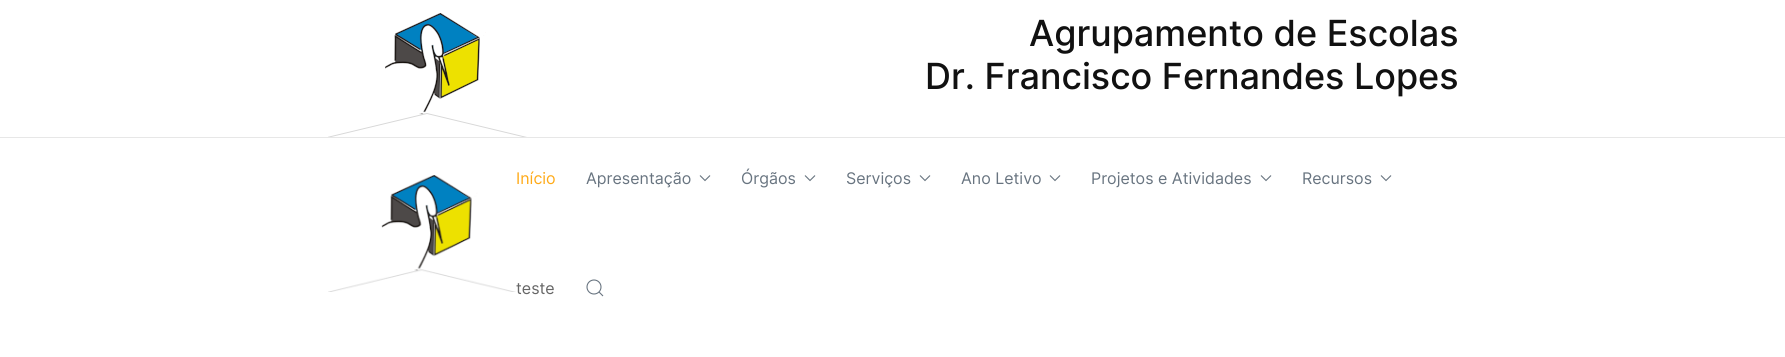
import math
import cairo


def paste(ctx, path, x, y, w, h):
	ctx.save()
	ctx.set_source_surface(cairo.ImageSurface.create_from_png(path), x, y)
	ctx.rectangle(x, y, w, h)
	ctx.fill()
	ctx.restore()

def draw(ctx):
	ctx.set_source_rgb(1, 1, 1)
	ctx.paint()
	ctx.set_source_rgb(0.906, 0.906, 0.906)
	ctx.rectangle(0, 137, 1785, 1)
	ctx.fill()
	paste(ctx, 'media/1.png', 328, 13, 199, 124)
	ctx.select_font_face('Inter Medium')
	ctx.set_font_size(36)
	ctx.set_source_rgb(0.067, 0.067, 0.067)
	ctx.move_to(1029, 46)
	ctx.show_text('Agrupamento de Escolas')
	ctx.move_to(925, 89)
	ctx.show_text('Dr. Francisco Fernandes Lopes')
	paste(ctx, 'media/2.png', 328, 175, 188, 117)
	ctx.select_font_face('Inter')
	ctx.set_font_size(16)
	ctx.set_source_rgb(1, 0.667, 0.09)
	ctx.move_to(516, 184)
	ctx.show_text('Início')
	ctx.set_source_rgb(0.408, 0.455, 0.502)
	ctx.move_to(586, 184)
	ctx.show_text('Apresentação')
	ctx.new_path()
	ctx.move_to(700, 175.5)
	ctx.line_to(705, 180.5)
	ctx.line_to(710, 175.5)
	ctx.set_line_width(1.1)
	ctx.stroke()
	ctx.move_to(741, 184)
	ctx.show_text('Órgãos')
	ctx.new_path()
	ctx.move_to(805, 175.5)
	ctx.line_to(810, 180.5)
	ctx.line_to(815, 175.5)
	ctx.stroke()
	ctx.move_to(846, 184)
	ctx.show_text('Serviços')
	ctx.new_path()
	ctx.move_to(920, 175.5)
	ctx.line_to(925, 180.5)
	ctx.line_to(930, 175.5)
	ctx.stroke()
	ctx.move_to(961, 184)
	ctx.show_text('Ano Letivo')
	ctx.new_path()
	ctx.move_to(1050, 175.5)
	ctx.line_to(1055, 180.5)
	ctx.line_to(1060, 175.5)
	ctx.stroke()
	ctx.move_to(1091, 184)
	ctx.show_text('Projetos e Atividades')
	ctx.new_path()
	ctx.move_to(1261, 175.5)
	ctx.line_to(1266, 180.5)
	ctx.line_to(1271, 175.5)
	ctx.stroke()
	ctx.move_to(1302, 184)
	ctx.show_text('Recursos')
	ctx.new_path()
	ctx.move_to(1381, 175.5)
	ctx.line_to(1386, 180.5)
	ctx.line_to(1391, 175.5)
	ctx.stroke()
	ctx.set_source_rgb(0.4, 0.4, 0.4)
	ctx.move_to(516, 294)
	ctx.show_text('teste')
	ctx.new_path()
	ctx.arc(594, 287, 7, 0, 2 * math.pi)
	ctx.set_source_rgb(0.408, 0.455, 0.502)
	ctx.stroke()
	ctx.new_path()
	ctx.move_to(599, 292)
	ctx.line_to(603, 296)
	ctx.close_path()
	ctx.stroke()


surface = cairo.ImageSurface(cairo.FORMAT_RGB24, 1785, 357)
ctx = cairo.Context(surface)
options = cairo.FontOptions()
options.set_hint_metrics(cairo.HINT_METRICS_OFF)
options.set_hint_style(cairo.HINT_STYLE_NONE)
ctx.set_font_options(options)
ctx.set_miter_limit(4)
draw(ctx)
surface.write_to_png('image.png')
